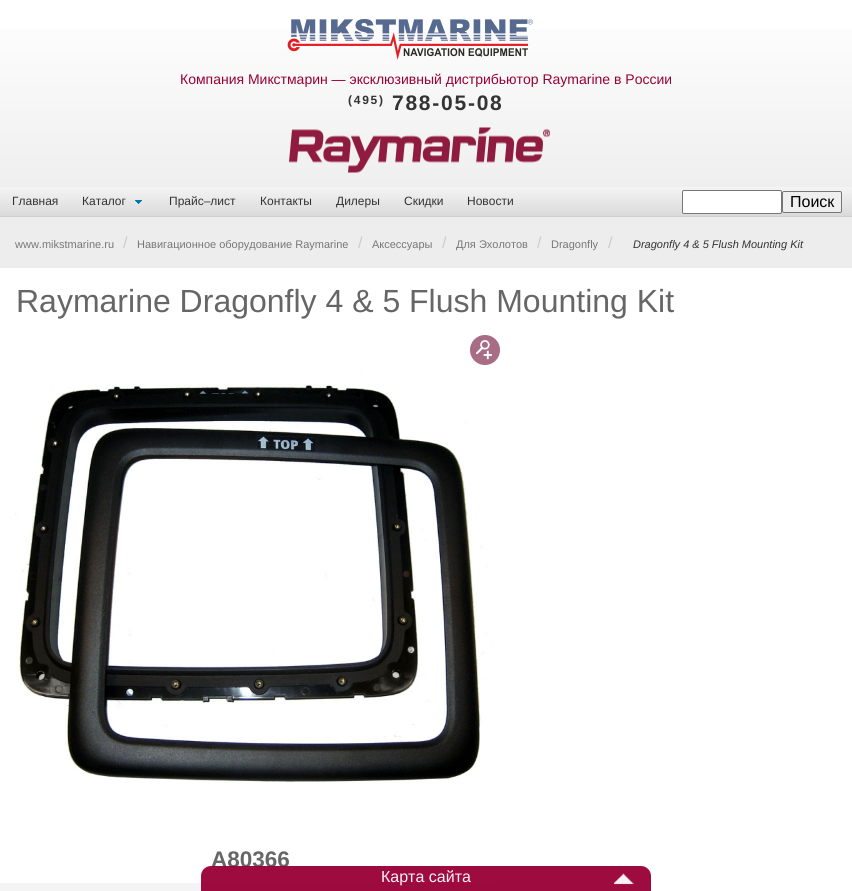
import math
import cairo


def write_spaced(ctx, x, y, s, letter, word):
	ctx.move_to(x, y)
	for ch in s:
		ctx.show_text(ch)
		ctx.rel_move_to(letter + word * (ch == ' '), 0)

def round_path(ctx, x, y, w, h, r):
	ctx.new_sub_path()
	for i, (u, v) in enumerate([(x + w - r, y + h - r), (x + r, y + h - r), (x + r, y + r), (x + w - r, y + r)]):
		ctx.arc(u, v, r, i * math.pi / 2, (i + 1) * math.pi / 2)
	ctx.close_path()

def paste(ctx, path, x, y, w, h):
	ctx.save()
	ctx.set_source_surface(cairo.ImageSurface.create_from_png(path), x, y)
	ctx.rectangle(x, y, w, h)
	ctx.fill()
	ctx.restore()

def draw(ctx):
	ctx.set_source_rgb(1, 1, 1)
	ctx.paint()
	gradient = cairo.LinearGradient(426, 185, 426, 0)
	gradient.add_color_stop_rgba(0, 0.937, 0.937, 0.937, 1)
	gradient.add_color_stop_rgba(1, 1, 1, 1, 1)
	ctx.set_source(gradient)
	ctx.rectangle(0, 29, 852, 156)
	ctx.fill()
	ctx.set_source_rgb(0.933, 0.933, 0.933)
	ctx.rectangle(0, 185, 852, 1)
	ctx.fill()
	paste(ctx, 'media/1.png', 287, 19, 246, 41)
	ctx.select_font_face('Liberation Sans')
	ctx.set_font_size(14)
	ctx.set_source_rgb(0.604, 0, 0.212)
	ctx.move_to(180, 84)
	ctx.show_text('Компания Микстмарин — эксклюзивный дистрибьютор Raymarine в России')
	ctx.select_font_face('Liberation Sans', cairo.FONT_SLANT_NORMAL, cairo.FONT_WEIGHT_BOLD)
	ctx.set_font_size(12)
	ctx.set_source_rgb(0.2, 0.2, 0.2)
	write_spaced(ctx, 348, 104, '(495)', 1.75, 0)
	ctx.set_font_size(21)
	write_spaced(ctx, 392, 110, '788-05-08', 1.75, 0)
	paste(ctx, 'media/2.png', 289, 127, 261, 46)
	gradient = cairo.LinearGradient(426, 216, 426, 187)
	gradient.add_color_stop_rgba(0, 0.855, 0.855, 0.855, 1)
	gradient.add_color_stop_rgba(1, 0.957, 0.957, 0.957, 1)
	ctx.set_source(gradient)
	ctx.rectangle(0, 187, 852, 29)
	ctx.fill()
	ctx.set_source_rgb(0.937, 0.937, 0.937)
	ctx.rectangle(0, 186, 852, 1)
	ctx.fill()
	ctx.set_source_rgb(0.812, 0.812, 0.812)
	ctx.rectangle(0, 216, 852, 1)
	ctx.fill()
	ctx.select_font_face('Liberation Sans')
	ctx.set_font_size(12)
	ctx.set_source_rgb(0.2, 0.2, 0.2)
	ctx.move_to(12, 205)
	ctx.show_text('Главная')
	ctx.move_to(82, 205)
	ctx.show_text('Каталог')
	paste(ctx, 'media/3.png', 135, 200, 7, 4)
	for x, y, s in [
		(169, 205, 'Прайс–лист'),
		(260, 205, 'Контакты'),
		(336, 205, 'Дилеры'),
		(404, 205, 'Скидки'),
		(467, 205, 'Новости'),
	]:
		ctx.move_to(x, y)
		ctx.show_text(s)
	ctx.set_source_rgb(1, 1, 1)
	round_path(ctx, 682.5, 190.5, 99, 23, 1.5)
	ctx.fill_preserve()
	ctx.set_source_rgb(0.463, 0.463, 0.463)
	ctx.set_line_width(1)
	ctx.stroke()
	ctx.set_source_rgb(0.937, 0.937, 0.937)
	round_path(ctx, 782.5, 191.5, 59, 21, 1.5)
	ctx.fill_preserve()
	ctx.set_source_rgb(0.463, 0.463, 0.463)
	ctx.stroke()
	ctx.set_font_size(16)
	ctx.set_source_rgb(0, 0, 0)
	ctx.move_to(790, 207)
	ctx.show_text('Поиск')
	ctx.set_source_rgb(0.929, 0.929, 0.929)
	ctx.rectangle(0, 217, 852, 51)
	ctx.fill()
	ctx.set_font_size(11)
	ctx.set_source_rgb(0.467, 0.467, 0.467)
	ctx.move_to(15, 248)
	ctx.show_text('www.mikstmarine.ru')
	ctx.set_font_size(16)
	ctx.set_source_rgb(0.8, 0.8, 0.8)
	ctx.move_to(123, 248)
	ctx.show_text('/')
	ctx.set_font_size(11)
	ctx.set_source_rgb(0.467, 0.467, 0.467)
	ctx.move_to(137, 248)
	ctx.show_text('Навигационное оборудование Raymarine')
	ctx.set_font_size(16)
	ctx.set_source_rgb(0.8, 0.8, 0.8)
	ctx.move_to(358, 248)
	ctx.show_text('/')
	ctx.set_font_size(11)
	ctx.set_source_rgb(0.467, 0.467, 0.467)
	ctx.move_to(372, 248)
	ctx.show_text('Аксессуары')
	ctx.set_font_size(16)
	ctx.set_source_rgb(0.8, 0.8, 0.8)
	ctx.move_to(442, 248)
	ctx.show_text('/')
	ctx.set_font_size(11)
	ctx.set_source_rgb(0.467, 0.467, 0.467)
	ctx.move_to(456, 248)
	ctx.show_text('Для Эхолотов')
	ctx.set_font_size(16)
	ctx.set_source_rgb(0.8, 0.8, 0.8)
	ctx.move_to(537, 248)
	ctx.show_text('/')
	ctx.set_font_size(11)
	ctx.set_source_rgb(0.467, 0.467, 0.467)
	ctx.move_to(551, 248)
	ctx.show_text('Dragonfly')
	ctx.set_font_size(16)
	ctx.set_source_rgb(0.8, 0.8, 0.8)
	ctx.move_to(608, 248)
	ctx.show_text('/')
	ctx.select_font_face('Liberation Sans', cairo.FONT_SLANT_ITALIC)
	ctx.set_font_size(11)
	ctx.set_source_rgb(0.2, 0.2, 0.2)
	ctx.move_to(633, 248)
	ctx.show_text('Dragonfly 4 & 5 Flush Mounting Kit')
	ctx.select_font_face('Liberation Sans')
	ctx.set_font_size(32)
	ctx.set_source_rgb(0.4, 0.4, 0.4)
	ctx.move_to(16, 312)
	ctx.show_text('Raymarine Dragonfly 4 & 5 Flush Mounting Kit')
	paste(ctx, 'media/4.png', 470, 335, 30, 30)
	paste(ctx, 'media/5.png', 15, 372, 478, 411)
	ctx.select_font_face('Liberation Sans', cairo.FONT_SLANT_NORMAL, cairo.FONT_WEIGHT_BOLD)
	ctx.set_font_size(22.5)
	ctx.move_to(211, 867)
	ctx.show_text('A80366')
	ctx.set_source_rgb(0.957, 0.957, 0.957)
	ctx.rectangle(0, 883, 500, 8)
	ctx.fill()
	ctx.set_source_rgba(0.604, 0, 0.212, 0.95)
	ctx.new_path()
	ctx.move_to(211, 866)
	ctx.line_to(641, 866)
	ctx.curve_to(646.5, 866, 651, 870.5, 651, 876)
	ctx.line_to(651, 891)
	ctx.line_to(201, 891)
	ctx.line_to(201, 876)
	ctx.curve_to(201, 870.5, 205.5, 866, 211, 866)
	ctx.close_path()
	ctx.fill()
	paste(ctx, 'media/6.png', 614, 873, 20, 12)
	ctx.select_font_face('Liberation Sans')
	ctx.set_font_size(16)
	ctx.set_source_rgb(0.98, 0.953, 0.961)
	ctx.move_to(381, 882)
	ctx.show_text('Карта сайта')


surface = cairo.ImageSurface(cairo.FORMAT_RGB24, 852, 891)
ctx = cairo.Context(surface)
options = cairo.FontOptions()
options.set_hint_metrics(cairo.HINT_METRICS_OFF)
options.set_hint_style(cairo.HINT_STYLE_NONE)
ctx.set_font_options(options)
ctx.set_miter_limit(4)
draw(ctx)
surface.write_to_png('image.png')
